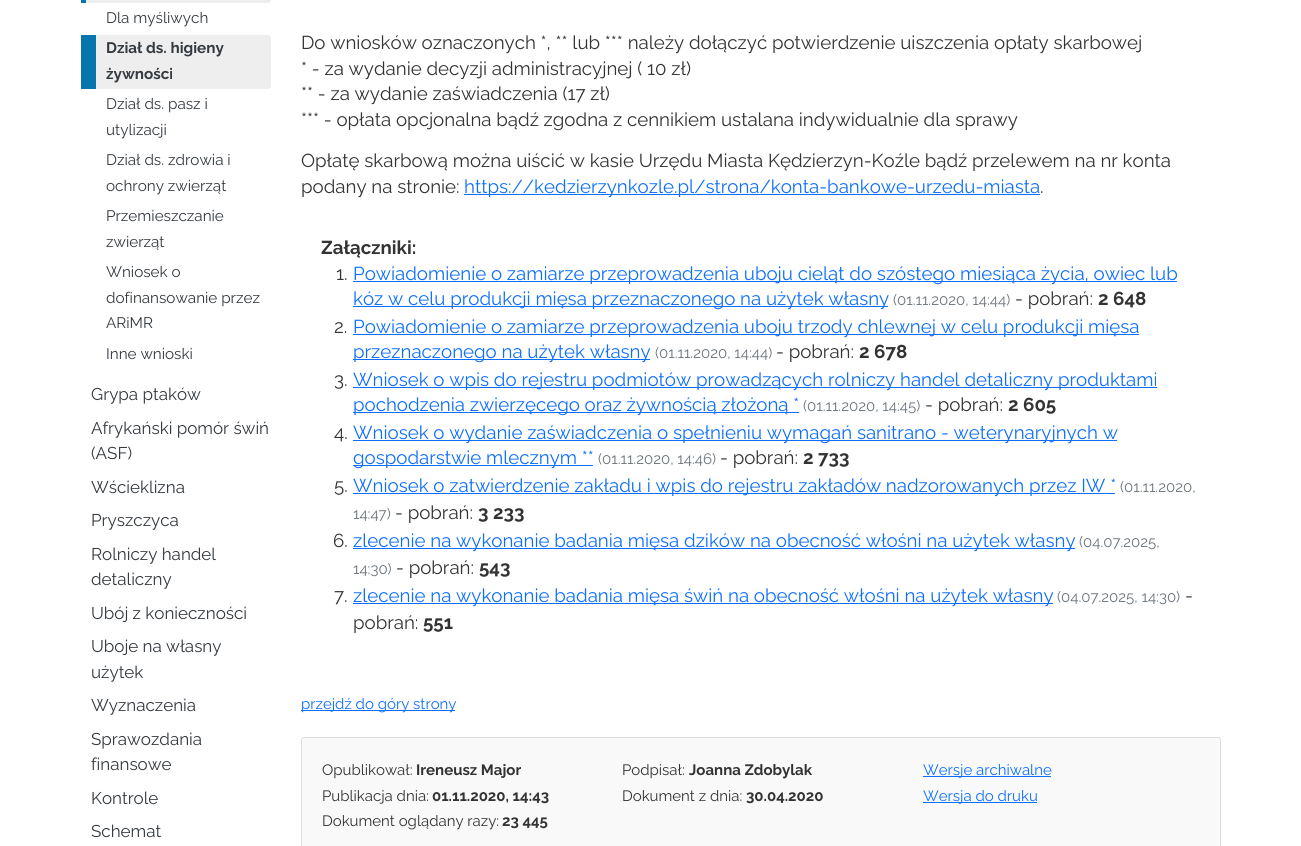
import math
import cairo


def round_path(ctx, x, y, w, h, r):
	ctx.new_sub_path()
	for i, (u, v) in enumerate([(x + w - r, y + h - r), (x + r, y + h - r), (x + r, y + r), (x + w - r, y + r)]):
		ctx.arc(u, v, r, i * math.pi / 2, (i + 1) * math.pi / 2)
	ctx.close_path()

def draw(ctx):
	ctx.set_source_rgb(1, 1, 1)
	ctx.paint()
	ctx.set_source_rgb(0.933, 0.933, 0.933)
	ctx.new_path()
	ctx.move_to(81, -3)
	ctx.line_to(268, -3)
	ctx.curve_to(269.5, -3, 271, -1.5, 271, 0)
	ctx.curve_to(271, 1.5, 269.5, 3, 268, 3)
	ctx.line_to(81, 3)
	ctx.close_path()
	ctx.fill()
	ctx.set_source_rgb(0.035, 0.463, 0.682)
	ctx.rectangle(81, 0, 5, 3)
	ctx.fill()
	ctx.select_font_face('Raleway')
	ctx.set_font_size(15.25)
	ctx.set_source_rgb(0.204, 0.227, 0.251)
	ctx.move_to(106, 23)
	ctx.show_text('Dla myśliwych')
	ctx.set_source_rgb(0.933, 0.933, 0.933)
	ctx.new_path()
	ctx.move_to(81, 35)
	ctx.line_to(268, 35)
	ctx.curve_to(269.5, 35, 271, 36.5, 271, 38)
	ctx.line_to(271, 86)
	ctx.curve_to(271, 87.5, 269.5, 89, 268, 89)
	ctx.line_to(81, 89)
	ctx.close_path()
	ctx.fill()
	ctx.set_source_rgb(0.035, 0.463, 0.682)
	ctx.rectangle(81, 35, 15, 54)
	ctx.fill()
	ctx.select_font_face('Raleway', cairo.FONT_SLANT_NORMAL, cairo.FONT_WEIGHT_BOLD)
	ctx.set_source_rgb(0.204, 0.227, 0.251)
	ctx.move_to(106, 53)
	ctx.show_text('Dział ds. higieny')
	ctx.move_to(106, 79)
	ctx.show_text('żywności')
	ctx.select_font_face('Raleway')
	for x, y, s in [
		(106, 109, 'Dział ds. pasz i'),
		(106, 135, 'utylizacji'),
		(106, 165, 'Dział ds. zdrowia i'),
		(106, 191, 'ochrony zwierząt'),
		(106, 221, 'Przemieszczanie'),
		(106, 247, 'zwierząt'),
		(106, 277, 'Wniosek o'),
		(106, 303, 'dofinansowanie przez'),
		(106, 328, 'ARiMR'),
		(106, 359, 'Inne wnioski'),
	]:
		ctx.move_to(x, y)
		ctx.show_text(s)
	ctx.set_font_size(17)
	for x, y, s in [
		(91, 400, 'Grypa ptaków'),
		(91, 434, 'Afrykański pomór świń'),
		(91, 459, '(ASF)'),
		(91, 493, 'Wścieklizna'),
		(91, 526, 'Pryszczyca'),
		(91, 560, 'Rolniczy handel'),
		(91, 585, 'detaliczny'),
		(91, 619, 'Ubój z konieczności'),
		(91, 652, 'Uboje na własny'),
		(91, 678, 'użytek'),
		(91, 711, 'Wyznaczenia'),
		(91, 745, 'Sprawozdania'),
		(91, 770, 'finansowe'),
		(91, 804, 'Kontrole'),
		(91, 837, 'Schemat'),
	]:
		ctx.move_to(x, y)
		ctx.show_text(s)
	ctx.set_font_size(18.7)
	ctx.set_source_rgb(0.2, 0.2, 0.2)
	for x, y, s in [
		(301, 49, 'Do wniosków oznaczonych *, ** lub *** należy dołączyć potwierdzenie uiszczenia opłaty skarbowej'),
		(301, 75, '* - za wydanie decyzji administracyjnej ( 10 zł)'),
		(301, 100, '** - za wydanie zaświadczenia (17 zł)'),
		(301, 126, '*** - opłata opcjonalna bądź zgodna z cennikiem ustalana indywidualnie dla sprawy'),
		(301, 167, 'Opłatę skarbową można uiścić w kasie Urzędu Miasta Kędzierzyn-Koźle bądź przelewem na nr konta'),
		(301, 193, 'podany na stronie:'),
	]:
		ctx.move_to(x, y)
		ctx.show_text(s)
	ctx.set_source_rgb(0.051, 0.431, 0.992)
	ctx.rectangle(464, 194, 576, 1)
	ctx.fill()
	ctx.move_to(464, 193)
	ctx.show_text('https://kedzierzynkozle.pl/strona/konta-bankowe-urzedu-miasta')
	ctx.set_source_rgb(0.2, 0.2, 0.2)
	ctx.move_to(1040, 193)
	ctx.show_text('.')
	ctx.select_font_face('Raleway', cairo.FONT_SLANT_NORMAL, cairo.FONT_WEIGHT_BOLD)
	ctx.move_to(321, 254)
	ctx.show_text('Załączniki:')
	ctx.select_font_face('Raleway')
	ctx.move_to(336, 280)
	ctx.show_text('1.')
	ctx.set_source_rgb(0.051, 0.431, 0.992)
	ctx.rectangle(353, 281, 824, 1)
	ctx.fill()
	ctx.move_to(353, 280)
	ctx.show_text('Powiadomienie o zamiarze przeprowadzenia uboju cieląt do szóstego miesiąca życia, owiec lub')
	ctx.rectangle(353, 306, 535, 1)
	ctx.fill()
	ctx.move_to(353, 305)
	ctx.show_text('kóz w celu produkcji mięsa przeznaczonego na użytek własny')
	ctx.set_font_size(15)
	ctx.set_source_rgb(0.424, 0.459, 0.49)
	ctx.move_to(893, 305)
	ctx.show_text('(01.11.2020, 14:44)')
	ctx.set_font_size(18.7)
	ctx.set_source_rgb(0.2, 0.2, 0.2)
	ctx.move_to(1015, 305)
	ctx.show_text('- pobrań:')
	ctx.select_font_face('Raleway', cairo.FONT_SLANT_NORMAL, cairo.FONT_WEIGHT_BOLD)
	ctx.move_to(1098, 305)
	ctx.show_text('2 648')
	ctx.select_font_face('Raleway')
	ctx.move_to(334, 333)
	ctx.show_text('2.')
	ctx.set_source_rgb(0.051, 0.431, 0.992)
	ctx.rectangle(353, 334, 786, 1)
	ctx.fill()
	ctx.move_to(353, 333)
	ctx.show_text('Powiadomienie o zamiarze przeprowadzenia uboju trzody chlewnej w celu produkcji mięsa')
	ctx.rectangle(353, 359, 297, 1)
	ctx.fill()
	ctx.move_to(353, 358)
	ctx.show_text('przeznaczonego na użytek własny')
	ctx.set_font_size(15)
	ctx.set_source_rgb(0.424, 0.459, 0.49)
	ctx.move_to(655, 358)
	ctx.show_text('(01.11.2020, 14:44)')
	ctx.set_font_size(18.7)
	ctx.set_source_rgb(0.2, 0.2, 0.2)
	ctx.move_to(776, 358)
	ctx.show_text('- pobrań:')
	ctx.select_font_face('Raleway', cairo.FONT_SLANT_NORMAL, cairo.FONT_WEIGHT_BOLD)
	ctx.move_to(859, 358)
	ctx.show_text('2 678')
	ctx.select_font_face('Raleway')
	ctx.move_to(334, 386)
	ctx.show_text('3.')
	ctx.set_source_rgb(0.051, 0.431, 0.992)
	ctx.rectangle(353, 387, 804, 1)
	ctx.fill()
	ctx.move_to(353, 386)
	ctx.show_text('Wniosek o wpis do rejestru podmiotów prowadzących rolniczy handel detaliczny produktami')
	ctx.rectangle(353, 412, 446, 1)
	ctx.fill()
	ctx.move_to(353, 411)
	ctx.show_text('pochodzenia zwierzęcego oraz żywnością złożoną *')
	ctx.set_font_size(15)
	ctx.set_source_rgb(0.424, 0.459, 0.49)
	ctx.move_to(803, 411)
	ctx.show_text('(01.11.2020, 14:45)')
	ctx.set_font_size(18.7)
	ctx.set_source_rgb(0.2, 0.2, 0.2)
	ctx.move_to(925, 411)
	ctx.show_text('- pobrań:')
	ctx.select_font_face('Raleway', cairo.FONT_SLANT_NORMAL, cairo.FONT_WEIGHT_BOLD)
	ctx.move_to(1008, 411)
	ctx.show_text('2 605')
	ctx.select_font_face('Raleway')
	ctx.move_to(334, 439)
	ctx.show_text('4.')
	ctx.set_source_rgb(0.051, 0.431, 0.992)
	ctx.rectangle(353, 440, 764, 1)
	ctx.fill()
	ctx.move_to(353, 439)
	ctx.show_text('Wniosek o wydanie zaświadczenia o spełnieniu wymagań sanitrano - weterynaryjnych w')
	ctx.rectangle(353, 465, 240, 1)
	ctx.fill()
	ctx.move_to(353, 464)
	ctx.show_text('gospodarstwie mlecznym **')
	ctx.set_font_size(15)
	ctx.set_source_rgb(0.424, 0.459, 0.49)
	ctx.move_to(598, 464)
	ctx.show_text('(01.11.2020, 14:46)')
	ctx.set_font_size(18.7)
	ctx.set_source_rgb(0.2, 0.2, 0.2)
	ctx.move_to(720, 464)
	ctx.show_text('- pobrań:')
	ctx.select_font_face('Raleway', cairo.FONT_SLANT_NORMAL, cairo.FONT_WEIGHT_BOLD)
	ctx.move_to(803, 464)
	ctx.show_text('2 733')
	ctx.select_font_face('Raleway')
	ctx.move_to(334, 492)
	ctx.show_text('5.')
	ctx.set_source_rgb(0.051, 0.431, 0.992)
	ctx.rectangle(353, 493, 762, 1)
	ctx.fill()
	ctx.move_to(353, 492)
	ctx.show_text('Wniosek o zatwierdzenie zakładu i wpis do rejestru zakładów nadzorowanych przez IW *')
	ctx.set_font_size(15)
	ctx.set_source_rgb(0.424, 0.459, 0.49)
	ctx.move_to(1120, 492)
	ctx.show_text('(01.11.2020,')
	ctx.move_to(353, 519)
	ctx.show_text('14:47)')
	ctx.set_font_size(18.7)
	ctx.set_source_rgb(0.2, 0.2, 0.2)
	ctx.move_to(395, 519)
	ctx.show_text('- pobrań:')
	ctx.select_font_face('Raleway', cairo.FONT_SLANT_NORMAL, cairo.FONT_WEIGHT_BOLD)
	ctx.move_to(478, 519)
	ctx.show_text('3 233')
	ctx.select_font_face('Raleway')
	ctx.move_to(333, 547)
	ctx.show_text('6.')
	ctx.set_source_rgb(0.051, 0.431, 0.992)
	ctx.rectangle(353, 548, 722, 1)
	ctx.fill()
	ctx.move_to(353, 547)
	ctx.show_text('zlecenie na wykonanie badania mięsa dzików na obecność włośni na użytek własny')
	ctx.set_font_size(15)
	ctx.set_source_rgb(0.424, 0.459, 0.49)
	ctx.move_to(1079, 547)
	ctx.show_text('(04.07.2025,')
	ctx.move_to(353, 574)
	ctx.show_text('14:30)')
	ctx.set_font_size(18.7)
	ctx.set_source_rgb(0.2, 0.2, 0.2)
	ctx.move_to(396, 574)
	ctx.show_text('- pobrań:')
	ctx.select_font_face('Raleway', cairo.FONT_SLANT_NORMAL, cairo.FONT_WEIGHT_BOLD)
	ctx.move_to(479, 574)
	ctx.show_text('543')
	ctx.select_font_face('Raleway')
	ctx.move_to(334, 602)
	ctx.show_text('7.')
	ctx.set_source_rgb(0.051, 0.431, 0.992)
	ctx.rectangle(353, 603, 700, 1)
	ctx.fill()
	ctx.move_to(353, 602)
	ctx.show_text('zlecenie na wykonanie badania mięsa świń na obecność włośni na użytek własny')
	ctx.set_font_size(15)
	ctx.set_source_rgb(0.424, 0.459, 0.49)
	ctx.move_to(1057, 602)
	ctx.show_text('(04.07.2025, 14:30)')
	ctx.set_font_size(18.7)
	ctx.set_source_rgb(0.2, 0.2, 0.2)
	ctx.move_to(1185, 602)
	ctx.show_text('-')
	ctx.move_to(353, 629)
	ctx.show_text('pobrań:')
	ctx.select_font_face('Raleway', cairo.FONT_SLANT_NORMAL, cairo.FONT_WEIGHT_BOLD)
	ctx.move_to(423, 629)
	ctx.show_text('551')
	ctx.set_source_rgb(0.051, 0.431, 0.992)
	ctx.rectangle(301, 710, 154, 1)
	ctx.fill()
	ctx.select_font_face('Raleway')
	ctx.set_font_size(15)
	ctx.move_to(301, 709)
	ctx.show_text('przejdź do góry strony')
	ctx.set_source_rgb(0.973, 0.976, 0.98)
	round_path(ctx, 301.5, 737.5, 919, 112, 2.5)
	ctx.fill_preserve()
	ctx.set_source_rgb(0.867, 0.867, 0.867)
	ctx.set_line_width(1)
	ctx.stroke()
	ctx.set_source_rgb(0.2, 0.2, 0.2)
	ctx.move_to(322, 775)
	ctx.show_text('Opublikował:')
	ctx.select_font_face('Raleway', cairo.FONT_SLANT_NORMAL, cairo.FONT_WEIGHT_BOLD)
	ctx.move_to(416, 775)
	ctx.show_text('Ireneusz Major')
	ctx.select_font_face('Raleway')
	ctx.move_to(322, 801)
	ctx.show_text('Publikacja dnia:')
	ctx.select_font_face('Raleway', cairo.FONT_SLANT_NORMAL, cairo.FONT_WEIGHT_BOLD)
	ctx.move_to(432, 801)
	ctx.show_text('01.11.2020, 14:43')
	ctx.select_font_face('Raleway')
	ctx.move_to(322, 826)
	ctx.show_text('Dokument oglądany razy:')
	ctx.select_font_face('Raleway', cairo.FONT_SLANT_NORMAL, cairo.FONT_WEIGHT_BOLD)
	ctx.move_to(502, 826)
	ctx.show_text('23 445')
	ctx.select_font_face('Raleway')
	ctx.move_to(622, 775)
	ctx.show_text('Podpisał:')
	ctx.select_font_face('Raleway', cairo.FONT_SLANT_NORMAL, cairo.FONT_WEIGHT_BOLD)
	ctx.move_to(689, 775)
	ctx.show_text('Joanna Zdobylak')
	ctx.select_font_face('Raleway')
	ctx.move_to(622, 801)
	ctx.show_text('Dokument z dnia:')
	ctx.select_font_face('Raleway', cairo.FONT_SLANT_NORMAL, cairo.FONT_WEIGHT_BOLD)
	ctx.move_to(746, 801)
	ctx.show_text('30.04.2020')
	ctx.set_source_rgb(0.051, 0.431, 0.992)
	ctx.rectangle(923, 776, 128, 1)
	ctx.fill()
	ctx.select_font_face('Raleway')
	ctx.move_to(923, 775)
	ctx.show_text('Wersje archiwalne')
	ctx.rectangle(923, 802, 114, 1)
	ctx.fill()
	ctx.move_to(923, 801)
	ctx.show_text('Wersja do druku')


surface = cairo.ImageSurface(cairo.FORMAT_RGB24, 1301, 846)
ctx = cairo.Context(surface)
options = cairo.FontOptions()
options.set_hint_metrics(cairo.HINT_METRICS_OFF)
options.set_hint_style(cairo.HINT_STYLE_NONE)
ctx.set_font_options(options)
ctx.set_miter_limit(4)
draw(ctx)
surface.write_to_png('image.png')
